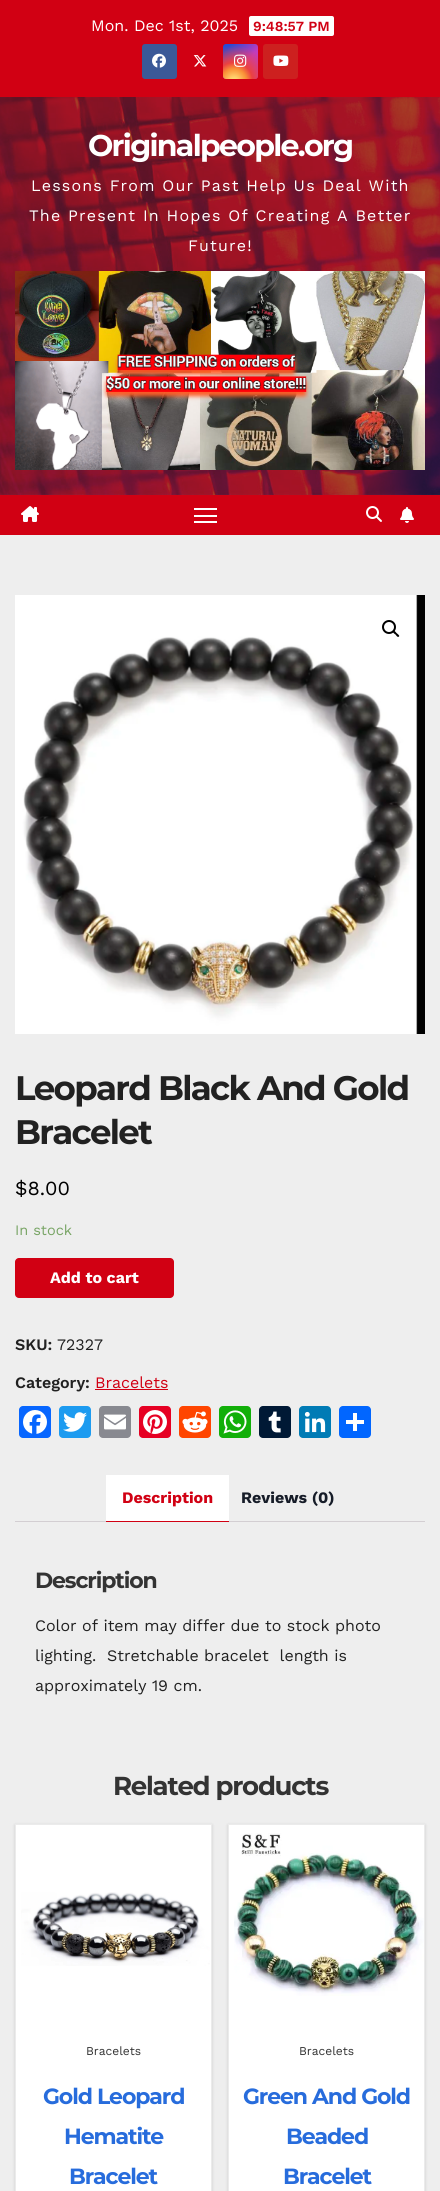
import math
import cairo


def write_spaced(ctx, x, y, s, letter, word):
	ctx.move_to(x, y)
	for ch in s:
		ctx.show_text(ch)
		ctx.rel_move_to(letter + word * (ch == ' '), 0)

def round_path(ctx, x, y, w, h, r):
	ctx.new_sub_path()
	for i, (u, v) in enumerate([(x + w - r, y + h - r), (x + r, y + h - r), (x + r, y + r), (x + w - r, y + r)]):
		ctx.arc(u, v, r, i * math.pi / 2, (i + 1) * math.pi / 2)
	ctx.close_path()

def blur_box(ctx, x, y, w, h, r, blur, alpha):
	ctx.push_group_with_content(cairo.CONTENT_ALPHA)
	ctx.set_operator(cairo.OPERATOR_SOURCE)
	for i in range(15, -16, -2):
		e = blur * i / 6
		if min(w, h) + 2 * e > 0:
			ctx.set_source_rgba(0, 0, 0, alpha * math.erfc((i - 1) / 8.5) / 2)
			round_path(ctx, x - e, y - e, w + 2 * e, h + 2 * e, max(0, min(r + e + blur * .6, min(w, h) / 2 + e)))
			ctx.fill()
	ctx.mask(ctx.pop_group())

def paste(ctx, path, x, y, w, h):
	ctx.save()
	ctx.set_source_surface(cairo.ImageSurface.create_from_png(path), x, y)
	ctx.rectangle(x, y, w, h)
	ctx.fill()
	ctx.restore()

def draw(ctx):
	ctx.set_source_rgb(0.933, 0.933, 0.933)
	ctx.paint()
	ctx.set_source_rgb(0.82, 0, 0.078)
	ctx.rectangle(0, 0, 440, 97)
	ctx.fill()
	ctx.select_font_face('Work Sans')
	ctx.set_font_size(16)
	ctx.set_source_rgb(1, 1, 1)
	ctx.move_to(91, 31)
	ctx.show_text('Mon. Dec 1st, 2025')
	round_path(ctx, 249, 16, 85, 20, 2)
	ctx.fill()
	ctx.select_font_face('Work Sans SemiBold')
	ctx.set_font_size(14)
	ctx.set_source_rgb(0.82, 0, 0.078)
	ctx.move_to(253, 31)
	ctx.show_text('9:48:57 PM')
	ctx.set_source_rgb(0.231, 0.349, 0.596)
	round_path(ctx, 142, 44, 35, 35, 3)
	ctx.fill()
	paste(ctx, 'media/1.png', 152, 53, 14, 15)
	paste(ctx, 'media/2.png', 193, 55, 14, 12)
	gradient = cairo.LinearGradient(223, 44, 258, 79)
	gradient.add_color_stop_rgba(0.12, 0.137, 0.294, 0.843, 1)
	gradient.add_color_stop_rgba(0.58, 0.765, 0.235, 0.745, 1)
	ctx.set_source(gradient)
	round_path(ctx, 223, 44, 35, 35, 3)
	ctx.fill()
	gradient = cairo.RadialGradient(234, 81, 0, 234, 81, 44)
	gradient.add_color_stop_rgba(0, 1, 0.882, 0.49, 1)
	gradient.add_color_stop_rgba(0.1, 1, 0.804, 0.412, 1)
	gradient.add_color_stop_rgba(0.28, 0.98, 0.569, 0.216, 1)
	gradient.add_color_stop_rgba(0.42, 0.922, 0.255, 0.255, 1)
	gradient.add_color_stop_rgba(0.82, 0.922, 0.255, 0.255, 0)
	ctx.set_source(gradient)
	round_path(ctx, 223, 44, 35, 35, 3)
	ctx.fill()
	paste(ctx, 'media/3.png', 234, 54, 13, 13)
	ctx.set_source_rgb(0.804, 0.125, 0.122)
	round_path(ctx, 263, 44, 35, 35, 3)
	ctx.fill()
	paste(ctx, 'media/4.png', 273, 55, 16, 11)
	paste(ctx, 'media/5.png', 0, 97, 440, 398)
	ctx.select_font_face('Montserrat', cairo.FONT_SLANT_NORMAL, cairo.FONT_WEIGHT_BOLD)
	ctx.set_font_size(30)
	ctx.set_source_rgb(1, 1, 1)
	write_spaced(ctx, 88, 156, 'Originalpeople.org', -1.7, 0)
	ctx.select_font_face('Work Sans')
	ctx.set_font_size(16)
	for x, y, s in [
		(31, 191, 'Lessons From Our Past Help Us Deal With'),
		(29, 221, 'The Present In Hopes Of Creating A Better'),
		(188, 251, 'Future!'),
	]:
		write_spaced(ctx, x, y, s, 1.2, 0)
	paste(ctx, 'media/6.png', 15, 271, 410, 199)
	ctx.set_source_rgb(0.82, 0, 0.078)
	ctx.rectangle(0, 495, 440, 40)
	ctx.fill()
	paste(ctx, 'media/7.png', 21, 506, 18, 16)
	ctx.set_source_rgb(1, 1, 1)
	ctx.rectangle(194, 508, 23, 2)
	ctx.rectangle(194, 515, 23, 2)
	ctx.rectangle(194, 521, 23, 2)
	ctx.fill()
	paste(ctx, 'media/8.png', 366, 506, 16, 16)
	paste(ctx, 'media/9.png', 400, 507, 14, 16)
	paste(ctx, 'media/10.png', 15, 595, 410, 439)
	ctx.arc(389, 627, 6, 0, 2 * math.pi)
	ctx.set_source_rgb(0, 0, 0)
	ctx.stroke()
	ctx.new_path()
	ctx.move_to(393, 631)
	ctx.curve_to(394.5, 630, 396, 632.5, 396.5, 633)
	ctx.curve_to(397.5, 634, 400, 635.5, 399, 636.5)
	ctx.curve_to(397.5, 638, 396, 635, 395.5, 634.5)
	ctx.curve_to(394.5, 634, 392, 632, 393, 631)
	ctx.close_path()
	ctx.fill()
	ctx.select_font_face('Montserrat', cairo.FONT_SLANT_NORMAL, cairo.FONT_WEIGHT_BOLD)
	ctx.set_font_size(34)
	ctx.set_source_rgb(0.129, 0.129, 0.129)
	write_spaced(ctx, 15, 1100, 'Leopard Black And Gold', -1.7, 0)
	write_spaced(ctx, 15, 1144, 'Bracelet', -1.7, 0)
	ctx.select_font_face('Work Sans')
	ctx.set_font_size(20)
	ctx.set_source_rgb(0, 0, 0)
	ctx.move_to(15, 1195)
	ctx.show_text('$8.00')
	ctx.set_font_size(14.5)
	ctx.set_source_rgb(0.467, 0.643, 0.392)
	ctx.move_to(15, 1235)
	ctx.show_text('In stock')
	ctx.set_source_rgb(0.82, 0, 0.078)
	round_path(ctx, 15, 1258, 159, 40, 4)
	ctx.fill()
	ctx.select_font_face('Work Sans', cairo.FONT_SLANT_NORMAL, cairo.FONT_WEIGHT_BOLD)
	ctx.set_font_size(16)
	ctx.set_source_rgb(1, 1, 1)
	ctx.move_to(50, 1283)
	ctx.show_text('Add to cart')
	ctx.select_font_face('Work Sans SemiBold')
	ctx.set_source_rgb(0.129, 0.129, 0.129)
	ctx.move_to(15, 1350)
	ctx.show_text('SKU:')
	ctx.select_font_face('Work Sans')
	ctx.move_to(57, 1350)
	ctx.show_text('72327')
	ctx.select_font_face('Work Sans SemiBold')
	ctx.move_to(15, 1388)
	ctx.show_text('Category:')
	ctx.select_font_face('Work Sans')
	ctx.set_source_rgb(0.82, 0, 0.078)
	ctx.move_to(95, 1388)
	ctx.show_text('Bracelets')
	ctx.rectangle(95, 1389, 73, 1)
	ctx.fill()
	ctx.set_source_rgb(0.031, 0.4, 1)
	round_path(ctx, 19, 1406, 32, 32, 4)
	ctx.fill()
	paste(ctx, 'media/11.png', 23, 1410, 24, 24)
	ctx.set_source_rgb(0.114, 0.608, 0.941)
	round_path(ctx, 59, 1406, 32, 32, 4)
	ctx.fill()
	paste(ctx, 'media/12.png', 63, 1412, 24, 20)
	ctx.set_source_rgb(0.533, 0.537, 0.565)
	round_path(ctx, 99, 1406, 32, 32, 4)
	ctx.fill()
	paste(ctx, 'media/13.png', 104, 1414, 22, 16)
	ctx.set_source_rgb(0.902, 0, 0.137)
	round_path(ctx, 139, 1406, 32, 32, 4)
	ctx.fill()
	paste(ctx, 'media/14.png', 143, 1410, 24, 24)
	ctx.set_source_rgb(1, 0.271, 0)
	round_path(ctx, 179, 1406, 32, 32, 4)
	ctx.fill()
	paste(ctx, 'media/15.png', 182, 1411, 26, 22)
	ctx.set_source_rgb(0.071, 0.686, 0.039)
	round_path(ctx, 219, 1406, 32, 32, 4)
	ctx.fill()
	paste(ctx, 'media/16.png', 223, 1410, 24, 24)
	ctx.set_source_rgb(0, 0.098, 0.208)
	round_path(ctx, 259, 1406, 32, 32, 4)
	ctx.fill()
	paste(ctx, 'media/17.png', 268, 1411, 13, 22)
	ctx.set_source_rgb(0, 0.482, 0.71)
	round_path(ctx, 299, 1406, 32, 32, 4)
	ctx.fill()
	paste(ctx, 'media/18.png', 304, 1411, 22, 22)
	ctx.set_source_rgb(0.004, 0.4, 1)
	round_path(ctx, 339, 1406, 32, 32, 4)
	ctx.fill()
	ctx.set_source_rgb(1, 1, 1)
	ctx.rectangle(353, 1413, 4, 18)
	ctx.rectangle(346, 1420, 18, 4)
	ctx.rectangle(106, 1475, 123, 46)
	ctx.fill()
	ctx.set_source_rgb(0.827, 0.808, 0.824)
	ctx.rectangle(15, 1521, 410, 1)
	ctx.fill()
	ctx.set_source_rgb(0.82, 0, 0.078)
	ctx.rectangle(106, 1521, 123, 1)
	ctx.fill()
	ctx.select_font_face('Work Sans', cairo.FONT_SLANT_NORMAL, cairo.FONT_WEIGHT_BOLD)
	ctx.move_to(122, 1503)
	ctx.show_text('Description')
	ctx.set_source_rgb(0.086, 0.11, 0.157)
	ctx.move_to(241, 1503)
	ctx.show_text('Reviews (0)')
	ctx.select_font_face('Montserrat', cairo.FONT_SLANT_NORMAL, cairo.FONT_WEIGHT_BOLD)
	ctx.set_font_size(22)
	ctx.set_source_rgb(0.2, 0.2, 0.2)
	write_spaced(ctx, 35, 1588, 'Description', -1.1, 0)
	ctx.select_font_face('Work Sans')
	ctx.set_font_size(16)
	ctx.set_source_rgb(0.129, 0.129, 0.129)
	for x, y, s in [
		(35, 1631, 'Color of item may differ due to stock photo'),
		(35, 1661, 'lighting.  Stretchable bracelet  length is'),
		(35, 1691, 'approximately 19 cm.'),
	]:
		ctx.move_to(x, y)
		ctx.show_text(s)
	ctx.select_font_face('Montserrat', cairo.FONT_SLANT_NORMAL, cairo.FONT_WEIGHT_BOLD)
	ctx.set_font_size(26)
	ctx.set_source_rgb(0.2, 0.2, 0.2)
	write_spaced(ctx, 113, 1795, 'Related products', -1.25, 0)
	ctx.set_source_rgb(0, 0, 0)
	blur_box(ctx, 15, 1825, 197, 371, 0, 1.5, 0.15)
	ctx.set_source_rgb(1, 1, 1)
	ctx.rectangle(15.5, 1824.5, 196, 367)
	ctx.fill_preserve()
	ctx.set_source_rgb(0.918, 0.918, 0.918)
	ctx.set_line_width(1)
	ctx.stroke()
	paste(ctx, 'media/19.png', 21, 1892, 189, 74)
	ctx.select_font_face('Work Sans')
	ctx.set_font_size(12)
	ctx.set_source_rgb(0.2, 0.2, 0.2)
	ctx.move_to(86, 2055)
	ctx.show_text('Bracelets')
	ctx.select_font_face('Montserrat', cairo.FONT_SLANT_NORMAL, cairo.FONT_WEIGHT_BOLD)
	ctx.set_font_size(22)
	ctx.set_source_rgb(0.153, 0.424, 0.863)
	for x, y, s in [
		(43, 2104, 'Gold Leopard'),
		(64, 2144, 'Hematite'),
		(69, 2184, 'Bracelet'),
	]:
		write_spaced(ctx, x, y, s, -1.1, 0)
	ctx.set_source_rgb(0, 0, 0)
	blur_box(ctx, 228, 1825, 197, 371, 0, 1.5, 0.15)
	ctx.set_source_rgb(1, 1, 1)
	ctx.rectangle(228.5, 1824.5, 196, 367)
	ctx.fill_preserve()
	ctx.set_source_rgb(0.918, 0.918, 0.918)
	ctx.stroke()
	paste(ctx, 'media/20.png', 234, 1833, 190, 163)
	ctx.select_font_face('Work Sans')
	ctx.set_font_size(12)
	ctx.set_source_rgb(0.2, 0.2, 0.2)
	ctx.move_to(299, 2055)
	ctx.show_text('Bracelets')
	ctx.select_font_face('Montserrat', cairo.FONT_SLANT_NORMAL, cairo.FONT_WEIGHT_BOLD)
	ctx.set_font_size(22)
	ctx.set_source_rgb(0.153, 0.424, 0.863)
	for x, y, s in [
		(243, 2104, 'Green And Gold'),
		(286, 2144, 'Beaded'),
		(283, 2184, 'Bracelet'),
	]:
		write_spaced(ctx, x, y, s, -1.1, 0)


surface = cairo.ImageSurface(cairo.FORMAT_RGB24, 440, 2191)
ctx = cairo.Context(surface)
options = cairo.FontOptions()
options.set_hint_metrics(cairo.HINT_METRICS_OFF)
options.set_hint_style(cairo.HINT_STYLE_NONE)
ctx.set_font_options(options)
ctx.set_miter_limit(4)
draw(ctx)
surface.write_to_png('image.png')
